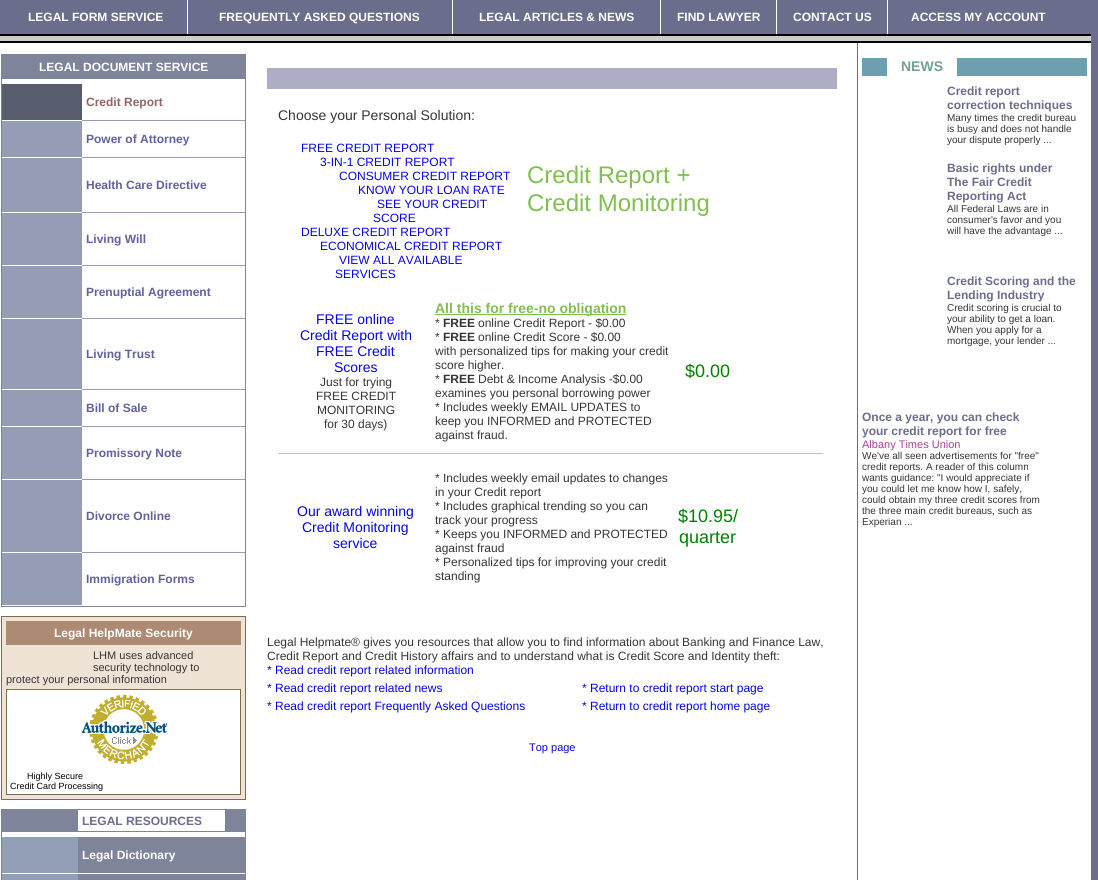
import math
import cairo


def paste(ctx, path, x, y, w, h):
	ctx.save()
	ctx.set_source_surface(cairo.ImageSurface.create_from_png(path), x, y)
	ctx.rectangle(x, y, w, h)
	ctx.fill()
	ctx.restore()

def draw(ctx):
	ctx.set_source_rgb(0.42, 0.427, 0.553)
	ctx.paint()
	ctx.select_font_face('Liberation Sans', cairo.FONT_SLANT_NORMAL, cairo.FONT_WEIGHT_BOLD)
	ctx.set_font_size(12)
	ctx.set_source_rgb(1, 1, 1)
	ctx.move_to(28, 21)
	ctx.show_text('LEGAL FORM SERVICE')
	ctx.rectangle(187, 0, 1, 34)
	ctx.fill()
	ctx.move_to(219, 21)
	ctx.show_text('FREQUENTLY ASKED QUESTIONS')
	ctx.rectangle(452, 0, 1, 34)
	ctx.fill()
	ctx.move_to(479, 21)
	ctx.show_text('LEGAL ARTICLES & NEWS')
	ctx.rectangle(660, 0, 1, 34)
	ctx.fill()
	ctx.move_to(677, 21)
	ctx.show_text('FIND LAWYER')
	ctx.rectangle(776, 0, 1, 34)
	ctx.fill()
	ctx.move_to(793, 21)
	ctx.show_text('CONTACT US')
	ctx.rectangle(887, 0, 1, 34)
	ctx.fill()
	ctx.move_to(911, 21)
	ctx.show_text('ACCESS MY ACCOUNT')
	ctx.set_source_rgb(0, 0, 0)
	ctx.rectangle(0, 34, 1091, 2)
	ctx.fill()
	ctx.set_source_rgb(0.8, 0.8, 0.8)
	ctx.rectangle(0, 36, 1091, 5)
	ctx.fill()
	ctx.set_source_rgb(0, 0, 0)
	ctx.rectangle(0, 41, 1091, 2)
	ctx.fill()
	ctx.set_source_rgb(1, 1, 1)
	ctx.rectangle(858, 43, 233, 837)
	ctx.rectangle(0, 43, 857, 837)
	ctx.fill()
	ctx.set_source_rgb(0.494, 0.518, 0.604)
	ctx.rectangle(1, 54, 245, 553)
	ctx.fill()
	ctx.set_source_rgb(1, 1, 1)
	ctx.rectangle(2, 79, 243, 527)
	ctx.fill()
	ctx.move_to(39, 71)
	ctx.show_text('LEGAL DOCUMENT SERVICE')
	ctx.set_source_rgb(0.341, 0.365, 0.427)
	ctx.rectangle(2, 84, 80, 36)
	ctx.fill()
	ctx.set_source_rgb(0.573, 0.396, 0.384)
	ctx.move_to(86, 106)
	ctx.show_text('Credit Report')
	ctx.set_source_rgb(0.584, 0.612, 0.714)
	ctx.rectangle(82, 120, 163, 1)
	ctx.fill()
	ctx.rectangle(2, 121, 80, 36)
	ctx.fill()
	ctx.set_source_rgb(0.38, 0.38, 0.627)
	ctx.move_to(86, 143)
	ctx.show_text('Power of Attorney')
	ctx.set_source_rgb(0.584, 0.612, 0.714)
	ctx.rectangle(82, 157, 163, 1)
	ctx.fill()
	ctx.rectangle(2, 158, 80, 54)
	ctx.fill()
	ctx.set_source_rgb(0.38, 0.38, 0.627)
	ctx.move_to(86, 189)
	ctx.show_text('Health Care Directive')
	ctx.set_source_rgb(0.584, 0.612, 0.714)
	ctx.rectangle(82, 212, 163, 1)
	ctx.fill()
	ctx.rectangle(2, 213, 80, 52)
	ctx.fill()
	ctx.set_source_rgb(0.38, 0.38, 0.627)
	ctx.move_to(86, 243)
	ctx.show_text('Living Will')
	ctx.set_source_rgb(0.584, 0.612, 0.714)
	ctx.rectangle(82, 265, 163, 1)
	ctx.fill()
	ctx.rectangle(2, 266, 80, 52)
	ctx.fill()
	ctx.set_source_rgb(0.38, 0.38, 0.627)
	ctx.move_to(86, 296)
	ctx.show_text('Prenuptial Agreement')
	ctx.set_source_rgb(0.584, 0.612, 0.714)
	ctx.rectangle(82, 318, 163, 1)
	ctx.fill()
	ctx.rectangle(2, 319, 80, 70)
	ctx.fill()
	ctx.set_source_rgb(0.38, 0.38, 0.627)
	ctx.move_to(86, 358)
	ctx.show_text('Living Trust')
	ctx.set_source_rgb(0.584, 0.612, 0.714)
	ctx.rectangle(82, 389, 163, 1)
	ctx.fill()
	ctx.rectangle(2, 390, 80, 36)
	ctx.fill()
	ctx.set_source_rgb(0.38, 0.38, 0.627)
	ctx.move_to(86, 412)
	ctx.show_text('Bill of Sale')
	ctx.set_source_rgb(0.584, 0.612, 0.714)
	ctx.rectangle(82, 426, 163, 1)
	ctx.fill()
	ctx.rectangle(2, 427, 80, 52)
	ctx.fill()
	ctx.set_source_rgb(0.38, 0.38, 0.627)
	ctx.move_to(86, 457)
	ctx.show_text('Promissory Note')
	ctx.set_source_rgb(0.584, 0.612, 0.714)
	ctx.rectangle(82, 479, 163, 1)
	ctx.fill()
	ctx.rectangle(2, 480, 80, 72)
	ctx.fill()
	ctx.set_source_rgb(0.38, 0.38, 0.627)
	ctx.move_to(86, 520)
	ctx.show_text('Divorce Online')
	ctx.set_source_rgb(0.584, 0.612, 0.714)
	ctx.rectangle(82, 552, 163, 1)
	ctx.fill()
	ctx.rectangle(2, 553, 80, 52)
	ctx.fill()
	ctx.set_source_rgb(0.38, 0.38, 0.627)
	ctx.move_to(86, 583)
	ctx.show_text('Immigration Forms')
	ctx.set_source_rgb(0.482, 0.427, 0.322)
	ctx.rectangle(1, 616, 245, 184)
	ctx.fill()
	ctx.set_source_rgb(0.937, 0.89, 0.839)
	ctx.rectangle(2, 617, 243, 182)
	ctx.fill()
	ctx.set_source_rgb(0.678, 0.541, 0.451)
	ctx.rectangle(6, 621, 235, 24)
	ctx.fill()
	ctx.set_source_rgb(1, 1, 1)
	ctx.move_to(54, 637)
	ctx.show_text('Legal HelpMate Security')
	ctx.select_font_face('Liberation Sans')
	ctx.set_font_size(11)
	ctx.set_source_rgb(0.208, 0.208, 0.208)
	for x, y, s in [
		(93, 659, 'LHM uses advanced'),
		(93, 671, 'security technology to'),
		(6, 683, 'protect your personal information'),
	]:
		ctx.move_to(x, y)
		ctx.show_text(s)
	ctx.set_source_rgb(0.482, 0.427, 0.322)
	ctx.rectangle(6, 689, 235, 106)
	ctx.fill()
	ctx.set_source_rgb(1, 1, 1)
	ctx.rectangle(7, 690, 233, 104)
	ctx.fill()
	paste(ctx, 'media/1.png', 81, 695, 86, 69)
	ctx.set_font_size(9)
	ctx.set_source_rgb(0, 0, 0)
	ctx.move_to(27, 779)
	ctx.show_text('Highly Secure')
	ctx.move_to(10, 789)
	ctx.show_text('Credit Card Processing')
	ctx.set_source_rgb(0.494, 0.518, 0.604)
	ctx.rectangle(1, 809, 245, 71)
	ctx.fill()
	ctx.set_source_rgb(1, 1, 1)
	ctx.rectangle(2, 810, 243, 64)
	ctx.fill()
	ctx.set_source_rgb(0.494, 0.518, 0.604)
	ctx.rectangle(2, 810, 76, 21)
	ctx.fill()
	ctx.select_font_face('Liberation Sans', cairo.FONT_SLANT_NORMAL, cairo.FONT_WEIGHT_BOLD)
	ctx.set_font_size(12)
	ctx.set_source_rgb(0.42, 0.427, 0.553)
	ctx.move_to(82, 825)
	ctx.show_text('LEGAL RESOURCES')
	ctx.set_source_rgb(0.494, 0.518, 0.604)
	ctx.rectangle(225, 810, 20, 21)
	ctx.rectangle(2, 831, 243, 1)
	ctx.fill()
	ctx.set_source_rgb(0.576, 0.624, 0.718)
	ctx.rectangle(2, 837, 76, 36)
	ctx.fill()
	ctx.set_source_rgb(0.494, 0.518, 0.604)
	ctx.rectangle(78, 837, 167, 36)
	ctx.fill()
	ctx.set_source_rgb(1, 1, 1)
	ctx.move_to(82, 859)
	ctx.show_text('Legal Dictionary')
	ctx.set_source_rgb(0.576, 0.624, 0.718)
	ctx.rectangle(2, 874, 76, 6)
	ctx.fill()
	ctx.set_source_rgb(0.678, 0.682, 0.776)
	ctx.rectangle(267, 68, 570, 21)
	ctx.fill()
	ctx.select_font_face('Liberation Sans')
	ctx.set_font_size(14)
	ctx.set_source_rgb(0.208, 0.208, 0.208)
	ctx.move_to(278, 120)
	ctx.show_text('Choose your Personal Solution:')
	ctx.set_font_size(12)
	ctx.set_source_rgb(0.02, 0.02, 0.878)
	for x, y, s in [
		(301, 152, 'FREE CREDIT REPORT'),
		(320, 166, '3-IN-1 CREDIT REPORT'),
		(339, 180, 'CONSUMER CREDIT REPORT'),
		(358, 194, 'KNOW YOUR LOAN RATE'),
		(377, 208, 'SEE YOUR CREDIT'),
		(373, 222, 'SCORE'),
		(301, 236, 'DELUXE CREDIT REPORT'),
		(320, 250, 'ECONOMICAL CREDIT REPORT'),
		(339, 264, 'VIEW ALL AVAILABLE'),
		(335, 278, 'SERVICES'),
	]:
		ctx.move_to(x, y)
		ctx.show_text(s)
	ctx.set_font_size(24)
	ctx.set_source_rgb(0.502, 0.749, 0.314)
	ctx.move_to(527, 183)
	ctx.show_text('Credit Report +')
	ctx.move_to(527, 211)
	ctx.show_text('Credit Monitoring')
	ctx.set_font_size(14)
	ctx.set_source_rgb(0.02, 0.02, 0.878)
	for x, y, s in [
		(316, 324, 'FREE online'),
		(300, 340, 'Credit Report with'),
		(316, 356, 'FREE Credit'),
		(334, 372, 'Scores'),
	]:
		ctx.move_to(x, y)
		ctx.show_text(s)
	ctx.set_font_size(12)
	ctx.set_source_rgb(0.208, 0.208, 0.208)
	for x, y, s in [
		(320, 386, 'Just for trying'),
		(316, 400, 'FREE CREDIT'),
		(317, 414, 'MONITORING'),
		(324, 428, 'for 30 days)'),
	]:
		ctx.move_to(x, y)
		ctx.show_text(s)
	ctx.set_source_rgb(0.502, 0.749, 0.314)
	ctx.rectangle(435, 314, 191, 1)
	ctx.fill()
	ctx.select_font_face('Liberation Sans', cairo.FONT_SLANT_NORMAL, cairo.FONT_WEIGHT_BOLD)
	ctx.set_font_size(14)
	ctx.move_to(435, 313)
	ctx.show_text('All this for free-no obligation')
	ctx.select_font_face('Liberation Sans')
	ctx.set_font_size(12)
	ctx.set_source_rgb(0.208, 0.208, 0.208)
	ctx.move_to(435, 327)
	ctx.show_text('*')
	ctx.select_font_face('Liberation Sans', cairo.FONT_SLANT_NORMAL, cairo.FONT_WEIGHT_BOLD)
	ctx.move_to(443, 327)
	ctx.show_text('FREE')
	ctx.select_font_face('Liberation Sans')
	ctx.move_to(478, 327)
	ctx.show_text('online Credit Report - $0.00')
	ctx.move_to(435, 341)
	ctx.show_text('*')
	ctx.select_font_face('Liberation Sans', cairo.FONT_SLANT_NORMAL, cairo.FONT_WEIGHT_BOLD)
	ctx.move_to(443, 341)
	ctx.show_text('FREE')
	ctx.select_font_face('Liberation Sans')
	for x, y, s in [
		(478, 341, 'online Credit Score - $0.00'),
		(435, 355, 'with personalized tips for making your credit'),
		(435, 369, 'score higher.'),
		(435, 383, '*'),
	]:
		ctx.move_to(x, y)
		ctx.show_text(s)
	ctx.select_font_face('Liberation Sans', cairo.FONT_SLANT_NORMAL, cairo.FONT_WEIGHT_BOLD)
	ctx.move_to(443, 383)
	ctx.show_text('FREE')
	ctx.select_font_face('Liberation Sans')
	for x, y, s in [
		(478, 383, 'Debt & Income Analysis -$0.00'),
		(435, 397, 'examines you personal borrowing power'),
		(435, 411, '* Includes weekly EMAIL UPDATES to'),
		(435, 425, 'keep you INFORMED and PROTECTED'),
		(435, 439, 'against fraud.'),
	]:
		ctx.move_to(x, y)
		ctx.show_text(s)
	ctx.set_font_size(18)
	ctx.set_source_rgb(0, 0.502, 0)
	ctx.move_to(685, 377)
	ctx.show_text('$0.00')
	ctx.set_source_rgb(0.753, 0.753, 0.753)
	ctx.rectangle(278, 453, 545, 1)
	ctx.fill()
	ctx.set_font_size(14)
	ctx.set_source_rgb(0.02, 0.02, 0.878)
	for x, y, s in [
		(297, 516, 'Our award winning'),
		(302, 532, 'Credit Monitoring'),
		(333, 548, 'service'),
	]:
		ctx.move_to(x, y)
		ctx.show_text(s)
	ctx.set_font_size(12)
	ctx.set_source_rgb(0.208, 0.208, 0.208)
	for x, y, s in [
		(435, 482, '* Includes weekly email updates to changes'),
		(435, 496, 'in your Credit report'),
		(435, 510, '* Includes graphical trending so you can'),
		(435, 524, 'track your progress'),
		(435, 538, '* Keeps you INFORMED and PROTECTED'),
		(435, 552, 'against fraud'),
		(435, 566, '* Personalized tips for improving your credit'),
		(435, 580, 'standing'),
	]:
		ctx.move_to(x, y)
		ctx.show_text(s)
	ctx.set_font_size(18)
	ctx.set_source_rgb(0, 0.502, 0)
	ctx.move_to(678, 522)
	ctx.show_text('$10.95/')
	ctx.move_to(679, 543)
	ctx.show_text('quarter')
	ctx.set_font_size(12)
	ctx.set_source_rgb(0.208, 0.208, 0.208)
	ctx.move_to(267, 646)
	ctx.show_text('Legal Helpmate® gives you resources that allow you to find information about Banking and Finance Law,')
	ctx.move_to(267, 660)
	ctx.show_text('Credit Report and Credit History affairs and to understand what is Credit Score and Identity theft:')
	ctx.set_source_rgb(0.02, 0.02, 0.878)
	for x, y, s in [
		(267, 674, '* Read credit report related information'),
		(267, 692, '* Read credit report related news'),
		(582, 692, '* Return to credit report start page'),
		(267, 710, '* Read credit report Frequently Asked Questions'),
		(582, 710, '* Return to credit report home page'),
	]:
		ctx.move_to(x, y)
		ctx.show_text(s)
	ctx.set_font_size(11)
	ctx.move_to(529, 751)
	ctx.show_text('Top page')
	ctx.set_source_rgb(0.424, 0.624, 0.69)
	ctx.rectangle(862, 58, 225, 18)
	ctx.fill()
	ctx.set_source_rgb(1, 1, 1)
	ctx.rectangle(887, 58, 70, 18)
	ctx.fill()
	ctx.select_font_face('Liberation Sans', cairo.FONT_SLANT_NORMAL, cairo.FONT_WEIGHT_BOLD)
	ctx.set_font_size(14)
	ctx.set_source_rgb(0.447, 0.627, 0.588)
	ctx.move_to(901, 71)
	ctx.show_text('NEWS')
	ctx.set_font_size(12)
	ctx.set_source_rgb(0.42, 0.427, 0.553)
	ctx.move_to(947, 95)
	ctx.show_text('Credit report')
	ctx.move_to(947, 109)
	ctx.show_text('correction techniques')
	ctx.select_font_face('Liberation Sans')
	ctx.set_font_size(10)
	ctx.set_source_rgb(0.208, 0.208, 0.208)
	for x, y, s in [
		(947, 121, 'Many times the credit bureau'),
		(947, 132, 'is busy and does not handle'),
		(947, 143, 'your dispute properly ...'),
	]:
		ctx.move_to(x, y)
		ctx.show_text(s)
	ctx.select_font_face('Liberation Sans', cairo.FONT_SLANT_NORMAL, cairo.FONT_WEIGHT_BOLD)
	ctx.set_font_size(12)
	ctx.set_source_rgb(0.42, 0.427, 0.553)
	for x, y, s in [
		(947, 172, 'Basic rights under'),
		(947, 186, 'The Fair Credit'),
		(947, 200, 'Reporting Act'),
	]:
		ctx.move_to(x, y)
		ctx.show_text(s)
	ctx.select_font_face('Liberation Sans')
	ctx.set_font_size(10)
	ctx.set_source_rgb(0.208, 0.208, 0.208)
	for x, y, s in [
		(947, 212, 'All Federal Laws are in'),
		(947, 223, 'consumer\'s favor and you'),
		(947, 234, 'will have the advantage ...'),
	]:
		ctx.move_to(x, y)
		ctx.show_text(s)
	ctx.select_font_face('Liberation Sans', cairo.FONT_SLANT_NORMAL, cairo.FONT_WEIGHT_BOLD)
	ctx.set_font_size(12)
	ctx.set_source_rgb(0.42, 0.427, 0.553)
	ctx.move_to(947, 285)
	ctx.show_text('Credit Scoring and the')
	ctx.move_to(947, 299)
	ctx.show_text('Lending Industry')
	ctx.select_font_face('Liberation Sans')
	ctx.set_font_size(10)
	ctx.set_source_rgb(0.208, 0.208, 0.208)
	for x, y, s in [
		(947, 311, 'Credit scoring is crucial to'),
		(947, 322, 'your ability to get a loan.'),
		(947, 333, 'When you apply for a'),
		(947, 344, 'mortgage, your lender ...'),
	]:
		ctx.move_to(x, y)
		ctx.show_text(s)
	ctx.select_font_face('Liberation Sans', cairo.FONT_SLANT_NORMAL, cairo.FONT_WEIGHT_BOLD)
	ctx.set_font_size(12)
	ctx.set_source_rgb(0.42, 0.427, 0.553)
	ctx.move_to(862, 421)
	ctx.show_text('Once a year, you can check')
	ctx.move_to(862, 435)
	ctx.show_text('your credit report for free')
	ctx.select_font_face('Liberation Sans')
	ctx.set_font_size(11)
	ctx.set_source_rgb(0.651, 0.259, 0.58)
	ctx.move_to(862, 448)
	ctx.show_text('Albany Times Union')
	ctx.set_font_size(10)
	ctx.set_source_rgb(0.208, 0.208, 0.208)
	for x, y, s in [
		(862, 459, 'We\'ve all seen advertisements for "free"'),
		(862, 470, 'credit reports. A reader of this column'),
		(862, 481, 'wants guidance: "I would appreciate if'),
		(862, 492, 'you could let me know how I, safely,'),
		(862, 503, 'could obtain my three credit scores from'),
		(862, 514, 'the three main credit bureaus, such as'),
		(862, 525, 'Experian ...'),
	]:
		ctx.move_to(x, y)
		ctx.show_text(s)


surface = cairo.ImageSurface(cairo.FORMAT_RGB24, 1098, 880)
ctx = cairo.Context(surface)
options = cairo.FontOptions()
options.set_hint_metrics(cairo.HINT_METRICS_OFF)
options.set_hint_style(cairo.HINT_STYLE_NONE)
ctx.set_font_options(options)
ctx.set_miter_limit(4)
draw(ctx)
surface.write_to_png('image.png')
